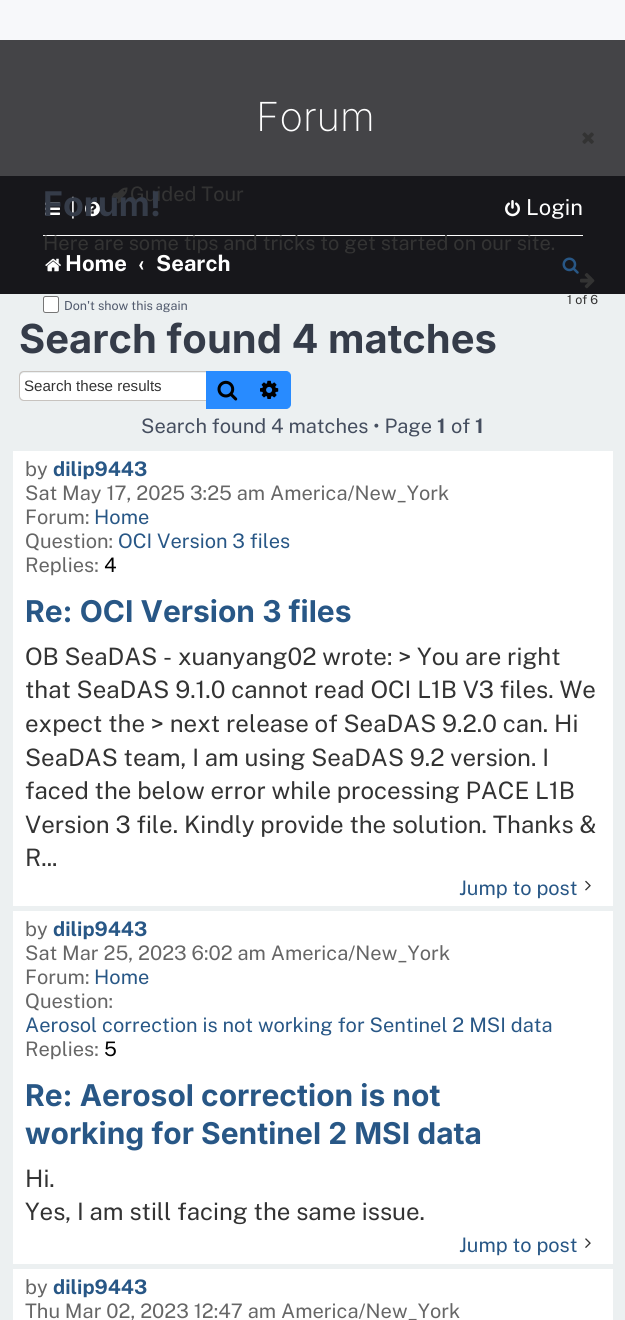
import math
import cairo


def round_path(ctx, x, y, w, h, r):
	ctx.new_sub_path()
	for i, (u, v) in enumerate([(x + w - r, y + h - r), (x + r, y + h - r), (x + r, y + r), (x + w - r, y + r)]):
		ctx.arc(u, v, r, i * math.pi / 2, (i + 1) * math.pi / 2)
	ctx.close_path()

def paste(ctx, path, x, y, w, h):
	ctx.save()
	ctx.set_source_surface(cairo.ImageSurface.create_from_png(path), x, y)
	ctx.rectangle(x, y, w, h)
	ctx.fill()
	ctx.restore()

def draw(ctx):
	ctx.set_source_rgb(0.965, 0.969, 0.98)
	ctx.paint()
	ctx.set_source_rgb(0.925, 0.941, 0.945)
	ctx.rectangle(0, 294, 625, 1026)
	ctx.fill()
	ctx.set_source_rgb(0.267, 0.267, 0.278)
	ctx.rectangle(0, 40, 625, 136)
	ctx.fill()
	ctx.select_font_face('Inter ExtraLight')
	ctx.set_font_size(40)
	ctx.set_source_rgb(1, 1, 1)
	ctx.move_to(256, 131)
	ctx.show_text('Forum')
	ctx.set_source_rgb(0.09, 0.09, 0.106)
	ctx.rectangle(0, 176, 625, 118)
	ctx.fill()
	paste(ctx, 'media/1.png', 111, 187, 17, 17)
	ctx.select_font_face('Public Sans')
	ctx.set_font_size(20)
	ctx.set_source_rgb(0.2, 0.2, 0.2)
	ctx.move_to(130, 201)
	ctx.show_text('Guided Tour')
	paste(ctx, 'media/2.png', 582, 132, 12, 12)
	paste(ctx, 'media/4.png', 45, 202, 15, 13)
	ctx.set_font_size(22)
	ctx.set_source_rgb(1, 1, 1)
	ctx.move_to(70, 215)
	ctx.show_text('|')
	paste(ctx, 'media/5.png', 85, 201, 15, 16)
	ctx.select_font_face('Inter', cairo.FONT_SLANT_NORMAL, cairo.FONT_WEIGHT_BOLD)
	ctx.set_font_size(34)
	ctx.set_source_rgb(0.208, 0.235, 0.286)
	ctx.move_to(43, 216)
	ctx.show_text('Forum!')
	ctx.set_source_rgb(1, 1, 1)
	ctx.rectangle(43, 235, 540, 1)
	ctx.fill()
	ctx.select_font_face('Public Sans')
	ctx.set_font_size(20)
	ctx.set_source_rgb(0.2, 0.2, 0.2)
	ctx.move_to(43, 250)
	ctx.show_text('Here are some tips and tricks to get started on our site.')
	paste(ctx, 'media/3.png', 580, 273, 15, 16)
	ctx.set_source_rgb(1, 1, 1)
	round_path(ctx, 43.5, 296.5, 15, 16, 2)
	ctx.fill_preserve()
	ctx.set_source_rgb(0.463, 0.463, 0.463)
	ctx.set_line_width(1)
	ctx.stroke()
	ctx.set_font_size(12.5)
	ctx.set_source_rgb(0.314, 0.349, 0.424)
	ctx.move_to(64, 310)
	ctx.show_text('Don\'t show this again')
	ctx.set_source_rgb(0.2, 0.2, 0.2)
	ctx.move_to(567, 304)
	ctx.show_text('1 of 6')
	paste(ctx, 'media/6.png', 505, 200, 15, 17)
	ctx.set_font_size(22)
	ctx.set_source_rgb(1, 1, 1)
	ctx.move_to(526, 215)
	ctx.show_text('Login')
	paste(ctx, 'media/7.png', 45, 258, 16, 14)
	ctx.select_font_face('Public Sans', cairo.FONT_SLANT_NORMAL, cairo.FONT_WEIGHT_BOLD)
	for x, y, s in [
		(65, 271, 'Home'),
		(138, 271, '‹'),
		(156, 271, 'Search'),
	]:
		ctx.move_to(x, y)
		ctx.show_text(s)
	paste(ctx, 'media/8.png', 562, 257, 17, 17)
	ctx.select_font_face('Inter', cairo.FONT_SLANT_NORMAL, cairo.FONT_WEIGHT_BOLD)
	ctx.set_font_size(40)
	ctx.set_source_rgb(0.208, 0.235, 0.286)
	ctx.move_to(19, 353)
	ctx.show_text('Search found 4 matches')
	ctx.set_source_rgb(1, 1, 1)
	ctx.new_path()
	ctx.move_to(24, 373)
	ctx.line_to(206, 373)
	ctx.line_to(206, 400)
	ctx.line_to(24, 400)
	ctx.curve_to(22, 400, 20, 398, 20, 396)
	ctx.line_to(20, 377)
	ctx.curve_to(20, 375, 22, 373, 24, 373)
	ctx.close_path()
	ctx.fill()
	ctx.set_source_rgb(0.78, 0.765, 0.749)
	ctx.set_fill_rule(cairo.FILL_RULE_EVEN_ODD)
	ctx.new_path()
	ctx.move_to(24, 371)
	ctx.line_to(206, 371)
	ctx.line_to(206, 401)
	ctx.line_to(24, 401)
	ctx.curve_to(21, 401, 19, 399, 19, 396)
	ctx.line_to(19, 376)
	ctx.curve_to(19, 373, 21, 371, 24, 371)
	ctx.close_path()
	ctx.move_to(24, 372)
	ctx.line_to(206, 372)
	ctx.line_to(206, 400)
	ctx.line_to(24, 400)
	ctx.curve_to(22, 400, 20, 398, 20, 396)
	ctx.line_to(20, 376)
	ctx.curve_to(20, 374, 22, 372, 24, 372)
	ctx.close_path()
	ctx.fill()
	ctx.select_font_face('Liberation Sans')
	ctx.set_font_size(15.1)
	ctx.set_source_rgb(0.2, 0.2, 0.2)
	ctx.move_to(24, 391)
	ctx.show_text('Search these results')
	ctx.set_source_rgb(0.157, 0.545, 1)
	ctx.rectangle(206, 371, 43, 38)
	ctx.fill()
	paste(ctx, 'media/9.png', 217, 380, 21, 21)
	ctx.new_path()
	ctx.move_to(249.5, 371.5)
	ctx.line_to(286, 371.5)
	ctx.curve_to(288.5, 371.5, 290.5, 373.5, 290.5, 376)
	ctx.line_to(290.5, 404)
	ctx.curve_to(290.5, 406.5, 288.5, 408.5, 286, 408.5)
	ctx.line_to(249.5, 408.5)
	ctx.close_path()
	ctx.fill_preserve()
	ctx.stroke()
	paste(ctx, 'media/10.png', 260, 380, 19, 19)
	ctx.select_font_face('Public Sans')
	ctx.set_font_size(20)
	ctx.set_source_rgb(0.271, 0.306, 0.373)
	ctx.move_to(141, 433)
	ctx.show_text('Search found 4 matches • Page')
	ctx.select_font_face('Public Sans', cairo.FONT_SLANT_NORMAL, cairo.FONT_WEIGHT_BOLD)
	ctx.move_to(437, 433)
	ctx.show_text('1')
	ctx.select_font_face('Public Sans')
	ctx.move_to(451, 433)
	ctx.show_text('of')
	ctx.select_font_face('Public Sans', cairo.FONT_SLANT_NORMAL, cairo.FONT_WEIGHT_BOLD)
	ctx.move_to(475, 433)
	ctx.show_text('1')
	ctx.set_source_rgb(1, 1, 1)
	ctx.rectangle(13, 451, 600, 455)
	ctx.fill()
	ctx.select_font_face('Public Sans')
	ctx.set_source_rgb(0.4, 0.4, 0.4)
	ctx.move_to(25, 476)
	ctx.show_text('by')
	ctx.select_font_face('Public Sans', cairo.FONT_SLANT_NORMAL, cairo.FONT_WEIGHT_BOLD)
	ctx.set_source_rgb(0.157, 0.341, 0.525)
	ctx.move_to(53, 476)
	ctx.show_text('dilip9443')
	ctx.select_font_face('Public Sans')
	ctx.set_source_rgb(0.4, 0.4, 0.4)
	ctx.move_to(25, 500)
	ctx.show_text('Sat May 17, 2025 3:25 am America/New_York')
	ctx.move_to(25, 524)
	ctx.show_text('Forum:')
	ctx.set_source_rgb(0.157, 0.341, 0.525)
	ctx.move_to(94, 524)
	ctx.show_text('Home')
	ctx.set_source_rgb(0.4, 0.4, 0.4)
	ctx.move_to(25, 548)
	ctx.show_text('Question:')
	ctx.set_source_rgb(0.157, 0.341, 0.525)
	ctx.move_to(118, 548)
	ctx.show_text('OCI Version 3 files')
	ctx.set_source_rgb(0.4, 0.4, 0.4)
	ctx.move_to(25, 572)
	ctx.show_text('Replies:')
	ctx.set_source_rgb(0, 0, 0)
	ctx.move_to(104, 572)
	ctx.show_text('4')
	ctx.select_font_face('Inter', cairo.FONT_SLANT_NORMAL, cairo.FONT_WEIGHT_BOLD)
	ctx.set_font_size(30)
	ctx.set_source_rgb(0.157, 0.341, 0.525)
	ctx.move_to(25, 622)
	ctx.show_text('Re: OCI Version 3 files')
	ctx.select_font_face('Public Sans')
	ctx.set_font_size(24)
	ctx.set_source_rgb(0.2, 0.2, 0.2)
	for x, y, s in [
		(25, 665, 'OB SeaDAS - xuanyang02 wrote: > You are right'),
		(25, 698, 'that SeaDAS 9.1.0 cannot read OCI L1B V3 files. We'),
		(25, 732, 'expect the > next release of SeaDAS 9.2.0 can. Hi'),
		(25, 766, 'SeaDAS team, I am using SeaDAS 9.2 version. I'),
		(25, 799, 'faced the below error while processing PACE L1B'),
		(25, 833, 'Version 3 file. Kindly provide the solution. Thanks &'),
		(25, 866, 'R...'),
	]:
		ctx.move_to(x, y)
		ctx.show_text(s)
	ctx.set_font_size(20)
	ctx.set_source_rgb(0.157, 0.341, 0.525)
	ctx.move_to(459, 895)
	ctx.show_text('Jump to post')
	paste(ctx, 'media/11.png', 585, 880, 6, 11)
	ctx.set_source_rgb(1, 1, 1)
	ctx.rectangle(13, 911, 600, 353)
	ctx.fill()
	ctx.set_source_rgb(0.4, 0.4, 0.4)
	ctx.move_to(25, 936)
	ctx.show_text('by')
	ctx.select_font_face('Public Sans', cairo.FONT_SLANT_NORMAL, cairo.FONT_WEIGHT_BOLD)
	ctx.set_source_rgb(0.157, 0.341, 0.525)
	ctx.move_to(53, 936)
	ctx.show_text('dilip9443')
	ctx.select_font_face('Public Sans')
	ctx.set_source_rgb(0.4, 0.4, 0.4)
	ctx.move_to(25, 960)
	ctx.show_text('Sat Mar 25, 2023 6:02 am America/New_York')
	ctx.move_to(25, 984)
	ctx.show_text('Forum:')
	ctx.set_source_rgb(0.157, 0.341, 0.525)
	ctx.move_to(94, 984)
	ctx.show_text('Home')
	ctx.set_source_rgb(0.4, 0.4, 0.4)
	ctx.move_to(25, 1008)
	ctx.show_text('Question:')
	ctx.set_source_rgb(0.157, 0.341, 0.525)
	ctx.move_to(25, 1032)
	ctx.show_text('Aerosol correction is not working for Sentinel 2 MSI data')
	ctx.set_source_rgb(0.4, 0.4, 0.4)
	ctx.move_to(25, 1056)
	ctx.show_text('Replies:')
	ctx.set_source_rgb(0, 0, 0)
	ctx.move_to(104, 1056)
	ctx.show_text('5')
	ctx.select_font_face('Inter', cairo.FONT_SLANT_NORMAL, cairo.FONT_WEIGHT_BOLD)
	ctx.set_font_size(30)
	ctx.set_source_rgb(0.157, 0.341, 0.525)
	ctx.move_to(25, 1106)
	ctx.show_text('Re: Aerosol correction is not')
	ctx.move_to(25, 1144)
	ctx.show_text('working for Sentinel 2 MSI data')
	ctx.select_font_face('Public Sans')
	ctx.set_font_size(24)
	ctx.set_source_rgb(0.2, 0.2, 0.2)
	ctx.move_to(25, 1187)
	ctx.show_text('Hi.')
	ctx.move_to(25, 1220)
	ctx.show_text('Yes, I am still facing the same issue.')
	ctx.set_font_size(20)
	ctx.set_source_rgb(0.157, 0.341, 0.525)
	ctx.move_to(459, 1252)
	ctx.show_text('Jump to post')
	paste(ctx, 'media/12.png', 585, 1238, 6, 10)
	ctx.set_source_rgb(1, 1, 1)
	ctx.rectangle(13, 1269, 600, 51)
	ctx.fill()
	ctx.set_source_rgb(0.4, 0.4, 0.4)
	ctx.move_to(25, 1294)
	ctx.show_text('by')
	ctx.select_font_face('Public Sans', cairo.FONT_SLANT_NORMAL, cairo.FONT_WEIGHT_BOLD)
	ctx.set_source_rgb(0.157, 0.341, 0.525)
	ctx.move_to(53, 1294)
	ctx.show_text('dilip9443')
	ctx.select_font_face('Public Sans')
	ctx.set_source_rgb(0.4, 0.4, 0.4)
	ctx.move_to(25, 1318)
	ctx.show_text('Thu Mar 02, 2023 12:47 am America/New_York')


surface = cairo.ImageSurface(cairo.FORMAT_RGB24, 625, 1320)
ctx = cairo.Context(surface)
options = cairo.FontOptions()
options.set_hint_metrics(cairo.HINT_METRICS_OFF)
options.set_hint_style(cairo.HINT_STYLE_NONE)
ctx.set_font_options(options)
ctx.set_miter_limit(4)
draw(ctx)
surface.write_to_png('image.png')
